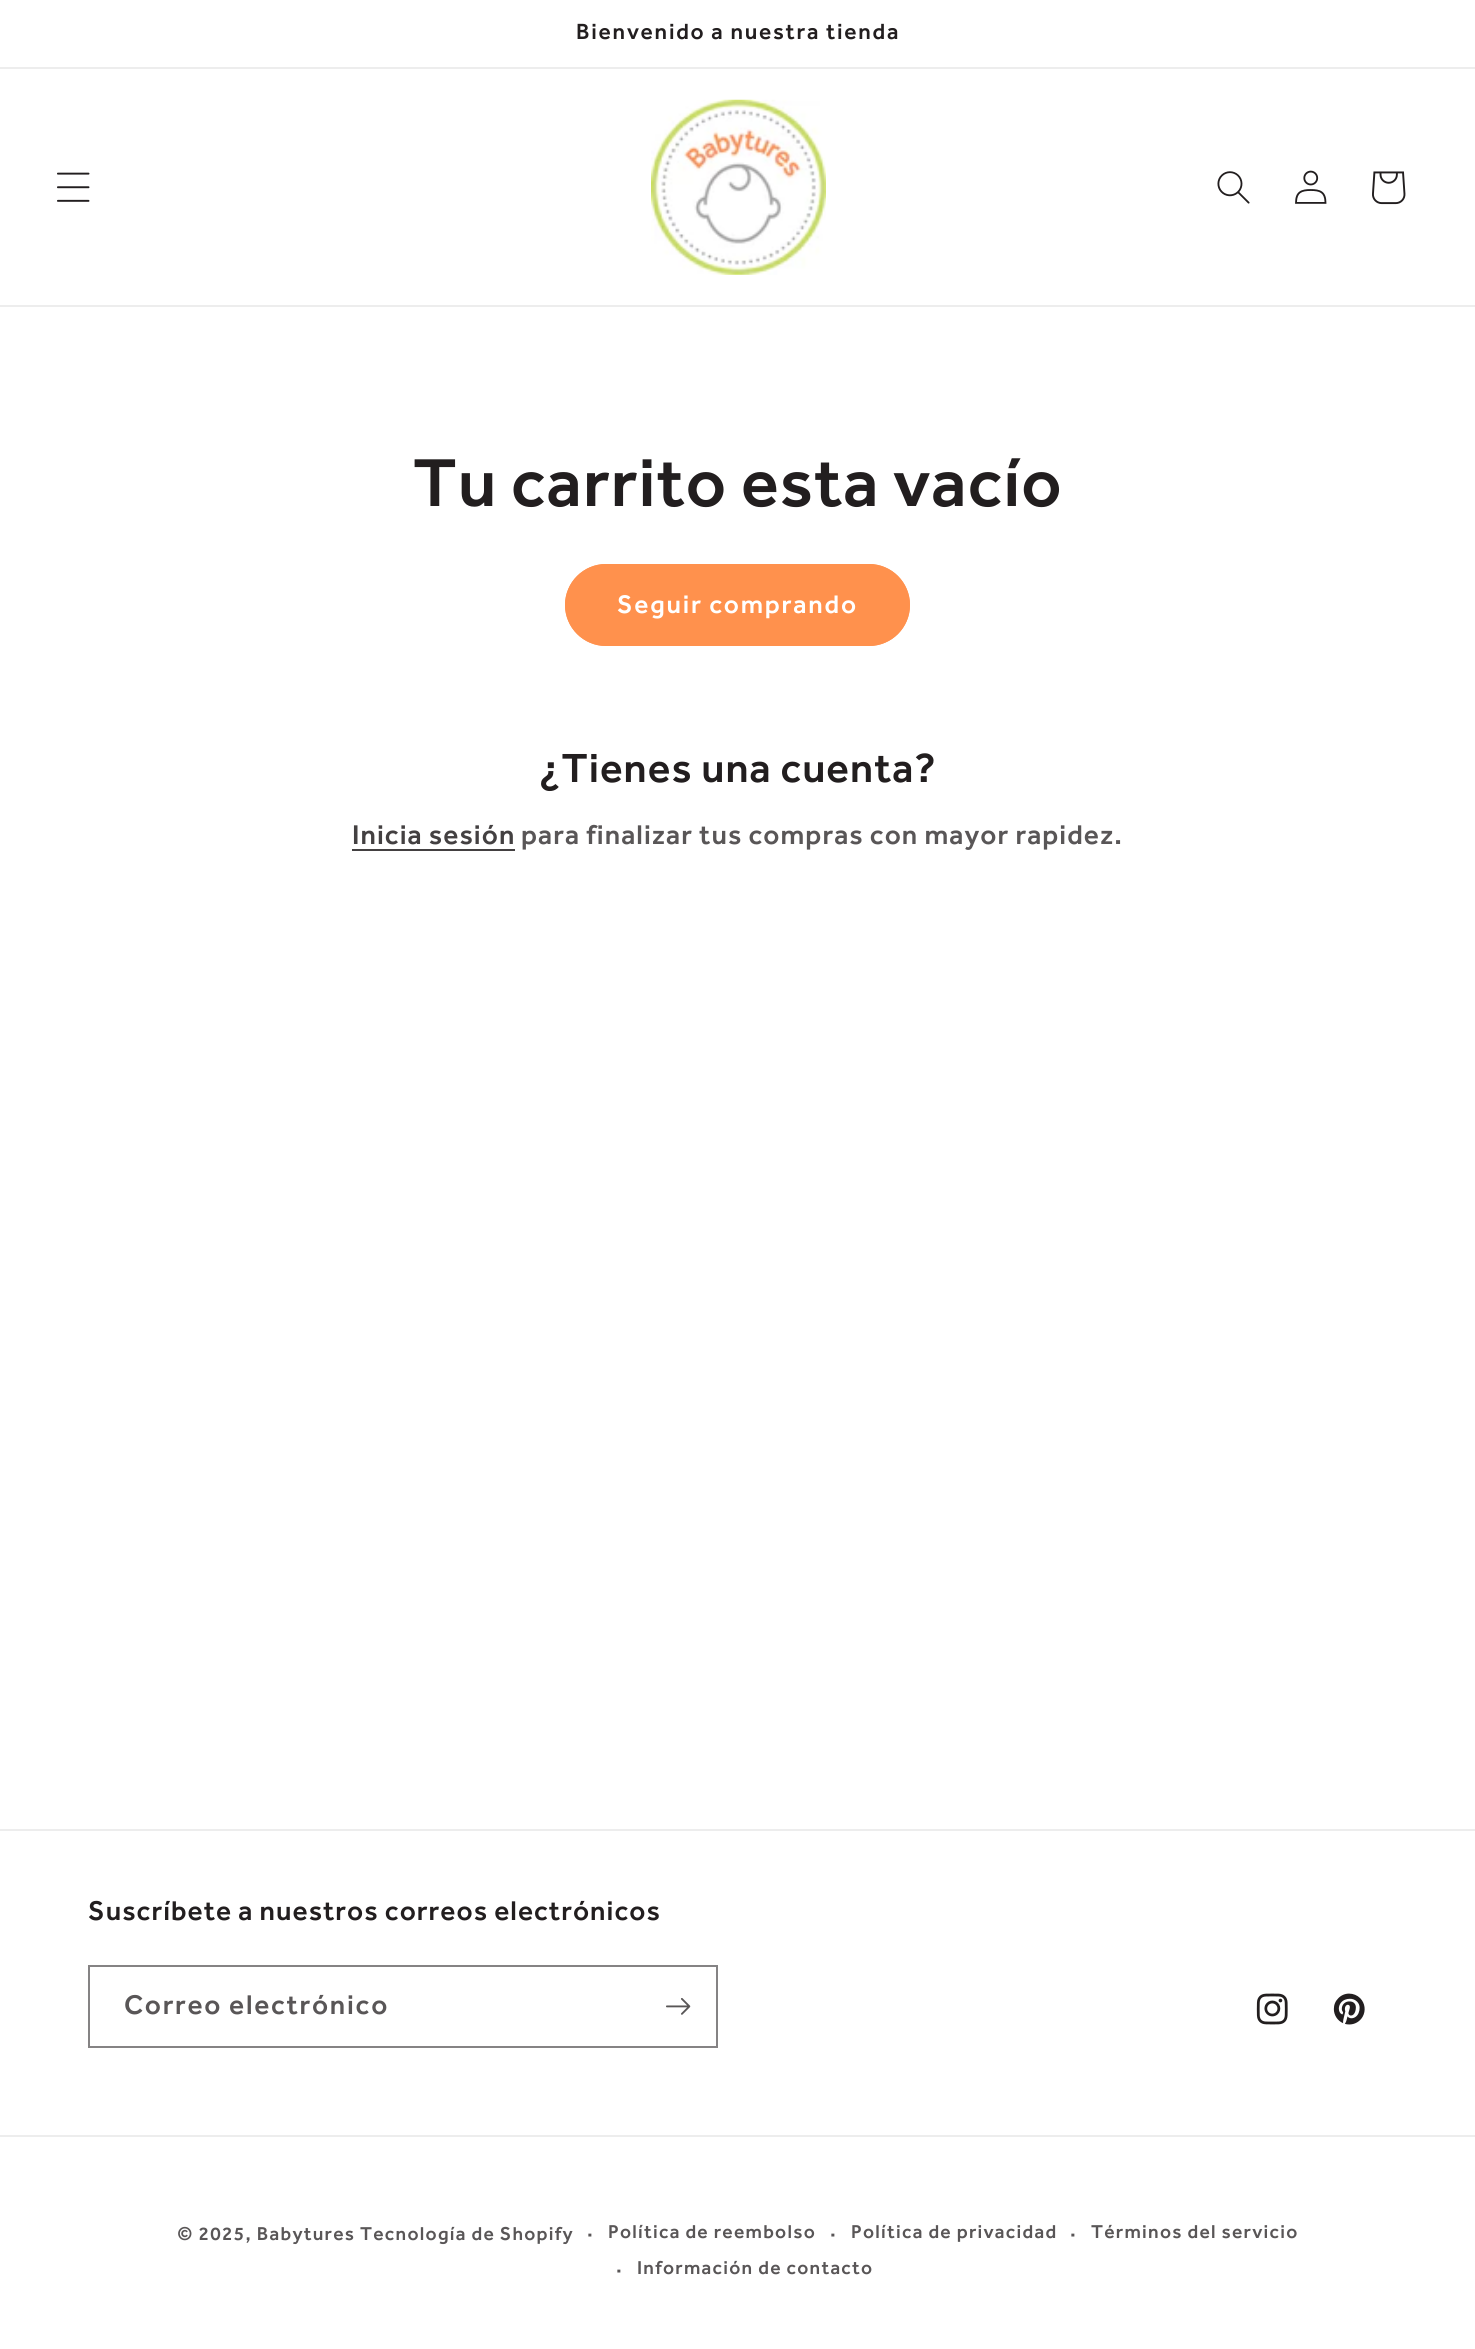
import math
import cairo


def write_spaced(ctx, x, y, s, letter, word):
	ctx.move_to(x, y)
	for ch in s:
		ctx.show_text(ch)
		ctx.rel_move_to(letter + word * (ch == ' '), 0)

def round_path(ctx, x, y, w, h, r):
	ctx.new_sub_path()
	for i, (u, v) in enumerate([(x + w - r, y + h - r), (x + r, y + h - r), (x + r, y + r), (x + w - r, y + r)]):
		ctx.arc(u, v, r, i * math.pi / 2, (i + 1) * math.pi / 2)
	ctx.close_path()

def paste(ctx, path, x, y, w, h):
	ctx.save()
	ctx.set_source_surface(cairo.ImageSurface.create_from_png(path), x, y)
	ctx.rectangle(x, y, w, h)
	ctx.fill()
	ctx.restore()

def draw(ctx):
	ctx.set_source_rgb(1, 1, 1)
	ctx.paint()
	ctx.set_source_rgb(0.929, 0.929, 0.929)
	ctx.rectangle(0, 67, 1475, 2)
	ctx.fill()
	ctx.select_font_face('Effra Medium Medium')
	ctx.set_font_size(22.75)
	ctx.set_source_rgb(0.133, 0.118, 0.122)
	write_spaced(ctx, 576, 39, 'Bienvenido a nuestra tienda', 1.75, 0)
	ctx.set_source_rgb(0.929, 0.929, 0.929)
	ctx.rectangle(0, 305, 1475, 2)
	ctx.fill()
	paste(ctx, 'media/1.png', 57, 172, 33, 30)
	paste(ctx, 'media/2.png', 651, 99, 175, 176)
	paste(ctx, 'media/3.png', 1217, 171, 33, 33)
	paste(ctx, 'media/4.png', 1295, 170, 32, 34)
	paste(ctx, 'media/5.png', 1372, 171, 34, 34)
	ctx.set_font_size(70)
	ctx.set_source_rgb(0.133, 0.118, 0.122)
	write_spaced(ctx, 413, 506, 'Tu carrito esta vacío', 1.05, 0)
	ctx.set_source_rgb(1, 0.569, 0.302)
	round_path(ctx, 565, 564, 345, 82, 41)
	ctx.fill()
	round_path(ctx, 566, 565, 343, 80, 40)
	ctx.stroke()
	ctx.set_font_size(26.25)
	ctx.set_source_rgb(1, 1, 1)
	write_spaced(ctx, 617, 613, 'Seguir comprando', 1.75, 0)
	ctx.set_font_size(42)
	ctx.set_source_rgb(0.133, 0.118, 0.122)
	write_spaced(ctx, 539, 782, '¿Tienes una cuenta?', 1.05, 0)
	ctx.set_font_size(28)
	ctx.set_source_rgb(0.263, 0.251, 0.255)
	write_spaced(ctx, 352, 844, 'Inicia sesión', 1.05, 0)
	ctx.rectangle(352, 849, 163, 2)
	ctx.fill()
	ctx.set_source_rgb(0.349, 0.337, 0.341)
	write_spaced(ctx, 521, 844, 'para finalizar tus compras con mayor rapidez.', 1.05, 0)
	ctx.set_source_rgb(0.929, 0.929, 0.929)
	ctx.rectangle(0, 1829, 1475, 2)
	ctx.fill()
	ctx.set_source_rgb(0.133, 0.118, 0.122)
	write_spaced(ctx, 88, 1920, 'Suscríbete a nuestros correos electrónicos', 1.05, 0)
	ctx.rectangle(89, 1966, 628, 81)
	ctx.set_source_rgb(0.522, 0.514, 0.518)
	ctx.stroke()
	ctx.set_source_rgb(0.349, 0.337, 0.341)
	write_spaced(ctx, 124, 2014, 'Correo electrónico', 1.75, 0)
	paste(ctx, 'media/6.png', 666, 1998, 25, 17)
	paste(ctx, 'media/7.png', 1256, 1993, 32, 32)
	paste(ctx, 'media/8.png', 1333, 1993, 32, 32)
	ctx.set_source_rgb(0.929, 0.929, 0.929)
	ctx.rectangle(0, 2135, 1475, 2)
	ctx.fill()
	ctx.set_font_size(19.25)
	ctx.set_source_rgb(0.349, 0.337, 0.341)
	write_spaced(ctx, 177, 2240, '© 2025, Babytures', 1.25, 0)
	write_spaced(ctx, 360, 2240, 'Tecnología de Shopify', 1.25, 0)
	ctx.set_font_size(21)
	write_spaced(ctx, 587, 2240, '·', 1.25, 0)
	ctx.set_font_size(19.25)
	write_spaced(ctx, 608, 2238, 'Política de reembolso', 1.25, 0)
	ctx.set_font_size(21)
	write_spaced(ctx, 830, 2240, '·', 1.25, 0)
	ctx.set_font_size(19.25)
	write_spaced(ctx, 851, 2238, 'Política de privacidad', 1.25, 0)
	ctx.set_font_size(21)
	write_spaced(ctx, 1070, 2240, '·', 1.25, 0)
	ctx.set_font_size(19.25)
	write_spaced(ctx, 1091, 2238, 'Términos del servicio', 1.25, 0)
	ctx.set_font_size(21)
	write_spaced(ctx, 616, 2276, '·', 1.25, 0)
	ctx.set_font_size(19.25)
	write_spaced(ctx, 637, 2274, 'Información de contacto', 1.25, 0)


surface = cairo.ImageSurface(cairo.FORMAT_RGB24, 1475, 2349)
ctx = cairo.Context(surface)
options = cairo.FontOptions()
options.set_hint_metrics(cairo.HINT_METRICS_OFF)
options.set_hint_style(cairo.HINT_STYLE_NONE)
ctx.set_font_options(options)
ctx.set_miter_limit(4)
draw(ctx)
surface.write_to_png('image.png')
